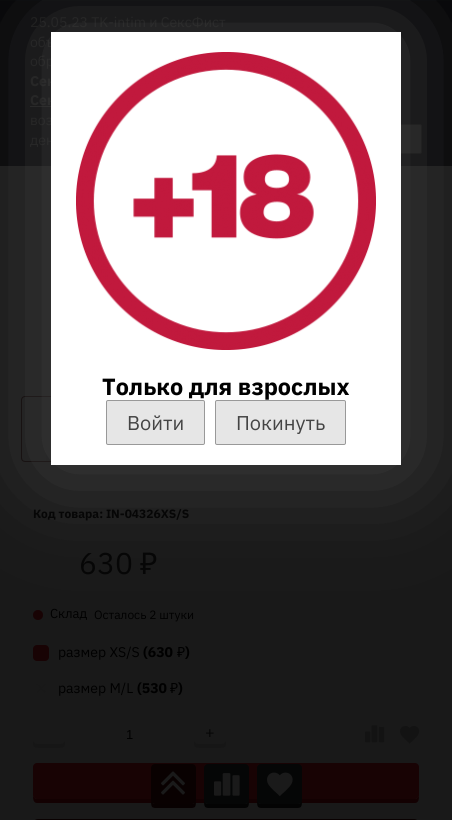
import math
import cairo


def round_path(ctx, x, y, w, h, r):
	ctx.new_sub_path()
	for i, (u, v) in enumerate([(x + w - r, y + h - r), (x + r, y + h - r), (x + r, y + r), (x + w - r, y + r)]):
		ctx.arc(u, v, r, i * math.pi / 2, (i + 1) * math.pi / 2)
	ctx.close_path()

def blur_box(ctx, x, y, w, h, r, blur, alpha):
	ctx.push_group_with_content(cairo.CONTENT_ALPHA)
	ctx.set_operator(cairo.OPERATOR_SOURCE)
	for i in range(15, -16, -2):
		e = blur * i / 6
		if min(w, h) + 2 * e > 0:
			ctx.set_source_rgba(0, 0, 0, alpha * math.erfc((i - 1) / 8.5) / 2)
			round_path(ctx, x - e, y - e, w + 2 * e, h + 2 * e, max(0, min(r + e + blur * .6, min(w, h) / 2 + e)))
			ctx.fill()
	ctx.mask(ctx.pop_group())

def paste(ctx, path, x, y, w, h):
	ctx.save()
	ctx.set_source_surface(cairo.ImageSurface.create_from_png(path), x, y)
	ctx.rectangle(x, y, w, h)
	ctx.fill()
	ctx.restore()

def draw(ctx):
	ctx.set_source_rgb(0.098, 0.098, 0.098)
	ctx.paint()
	ctx.set_source_rgb(0.012, 0.012, 0.02)
	ctx.rectangle(0, 1, 452, 165)
	ctx.fill()
	ctx.set_source_rgb(0.016, 0.02, 0.031)
	ctx.rectangle(0, 0, 452, 1)
	ctx.fill()
	ctx.select_font_face('IBM Plex Sans')
	ctx.set_font_size(14)
	ctx.set_source_rgb(0.086, 0.086, 0.086)
	for x, y, s in [
		(30, 27, '25.05.23 TK-intim и СексФист'),
		(30, 47, 'объ'),
		(30, 66, 'обр'),
	]:
		ctx.move_to(x, y)
		ctx.show_text(s)
	ctx.select_font_face('IBM Plex Sans', cairo.FONT_SLANT_NORMAL, cairo.FONT_WEIGHT_BOLD)
	ctx.move_to(30, 86)
	ctx.show_text('Сек')
	ctx.move_to(30, 105)
	ctx.show_text('Сек')
	ctx.set_source_rgb(0.098, 0.098, 0.098)
	ctx.rectangle(30, 106, 21, 1)
	ctx.fill()
	ctx.select_font_face('IBM Plex Sans')
	ctx.set_source_rgb(0.086, 0.086, 0.086)
	ctx.move_to(30, 125)
	ctx.show_text('воз')
	ctx.move_to(30, 145)
	ctx.show_text('ден')
	ctx.set_source_rgb(0.094, 0.094, 0.094)
	round_path(ctx, 302.5, 124.5, 119, 29, 1.5)
	ctx.fill_preserve()
	ctx.set_source_rgb(0.047, 0.047, 0.047)
	ctx.set_line_width(1)
	ctx.stroke()
	round_path(ctx, 21.5, 396.5, 94, 65, 3.5)
	ctx.set_source_rgb(0.039, 0.004, 0.004)
	ctx.stroke()
	paste(ctx, 'media/2.png', 46, 397, 5, 64)
	ctx.set_source_rgb(0.094, 0.012, 0.016)
	ctx.arc(38, 615, 5, 0, 2 * math.pi)
	ctx.fill()
	ctx.set_source_rgb(0.267, 0.267, 0.267)
	blur_box(ctx, 50, 31, 352, 435, 0, 50, 1)
	ctx.set_source_rgb(1, 1, 1)
	ctx.rectangle(51, 32, 350, 433)
	ctx.fill()
	paste(ctx, 'media/1.png', 76, 52, 300, 298)
	ctx.select_font_face('IBM Plex Sans', cairo.FONT_SLANT_NORMAL, cairo.FONT_WEIGHT_BOLD)
	ctx.set_font_size(23.4)
	ctx.set_source_rgb(0, 0, 0)
	ctx.move_to(102, 395)
	ctx.show_text('Только для взрослых')
	ctx.set_source_rgb(0.902, 0.902, 0.902)
	round_path(ctx, 106.5, 400.5, 98, 44, 1.5)
	ctx.fill_preserve()
	ctx.set_source_rgb(0.6, 0.6, 0.6)
	ctx.stroke()
	ctx.select_font_face('IBM Plex Sans')
	ctx.set_font_size(20)
	ctx.set_source_rgb(0.267, 0.267, 0.267)
	ctx.move_to(127, 430)
	ctx.show_text('Войти')
	ctx.set_source_rgb(0.902, 0.902, 0.902)
	round_path(ctx, 215.5, 400.5, 130, 44, 1.5)
	ctx.fill_preserve()
	ctx.set_source_rgb(0.6, 0.6, 0.6)
	ctx.stroke()
	ctx.set_source_rgb(0.267, 0.267, 0.267)
	ctx.move_to(236, 430)
	ctx.show_text('Покинуть')
	ctx.select_font_face('IBM Plex Sans', cairo.FONT_SLANT_NORMAL, cairo.FONT_WEIGHT_BOLD)
	ctx.set_font_size(12)
	ctx.set_source_rgb(0.024, 0.024, 0.024)
	ctx.move_to(33, 518)
	ctx.show_text('Код товара: IN-04326XS/S')
	ctx.select_font_face('IBM Plex Sans')
	ctx.set_font_size(30)
	ctx.move_to(79, 574)
	ctx.show_text('630')
	ctx.select_font_face('Noto Sans')
	ctx.move_to(140, 574)
	ctx.show_text('₽')
	ctx.select_font_face('IBM Plex Sans')
	ctx.set_font_size(13)
	ctx.set_source_rgb(0, 0, 0)
	ctx.move_to(50, 618)
	ctx.show_text('Склад')
	ctx.set_font_size(12)
	ctx.move_to(94, 619)
	ctx.show_text('Осталось 2 штуки')
	ctx.set_source_rgb(0.094, 0.012, 0.016)
	round_path(ctx, 33, 645, 16, 16, 4)
	ctx.fill()
	ctx.set_font_size(14)
	ctx.set_source_rgb(0, 0, 0)
	ctx.move_to(58, 657)
	ctx.show_text('размер XS/S')
	ctx.select_font_face('IBM Plex Sans', cairo.FONT_SLANT_NORMAL, cairo.FONT_WEIGHT_BOLD)
	ctx.move_to(143, 657)
	ctx.show_text('(630')
	ctx.select_font_face('Noto Sans')
	ctx.move_to(177, 657)
	ctx.show_text('₽')
	ctx.select_font_face('IBM Plex Sans', cairo.FONT_SLANT_NORMAL, cairo.FONT_WEIGHT_BOLD)
	ctx.move_to(185, 657)
	ctx.show_text(')')
	paste(ctx, 'media/3.png', 36, 683, 10, 10)
	ctx.select_font_face('IBM Plex Sans')
	ctx.move_to(58, 693)
	ctx.show_text('размер M/L')
	ctx.select_font_face('IBM Plex Sans', cairo.FONT_SLANT_NORMAL, cairo.FONT_WEIGHT_BOLD)
	ctx.move_to(137, 693)
	ctx.show_text('(530')
	ctx.select_font_face('Noto Sans')
	ctx.move_to(170, 693)
	ctx.show_text('₽')
	ctx.select_font_face('IBM Plex Sans', cairo.FONT_SLANT_NORMAL, cairo.FONT_WEIGHT_BOLD)
	ctx.move_to(178, 693)
	ctx.show_text(')')
	ctx.select_font_face('Liberation Sans')
	ctx.set_font_size(13)
	ctx.move_to(126, 739)
	ctx.show_text('1')
	ctx.set_source_rgb(0.086, 0.086, 0.086)
	ctx.new_path()
	ctx.move_to(194, 740)
	ctx.curve_to(194, 747.5, 194, 748, 202, 748)
	ctx.line_to(218, 748)
	ctx.curve_to(226, 748, 226, 747.5, 226, 740)
	ctx.curve_to(226, 742, 224, 744, 222, 744)
	ctx.line_to(198, 744)
	ctx.curve_to(196, 744, 194, 742, 194, 740)
	ctx.close_path()
	ctx.fill()
	ctx.select_font_face('IBM Plex Sans')
	ctx.set_font_size(16)
	ctx.set_source_rgb(0.024, 0.024, 0.024)
	ctx.move_to(205, 738)
	ctx.show_text('+')
	ctx.set_source_rgb(0.086, 0.086, 0.086)
	ctx.new_path()
	ctx.move_to(33, 740)
	ctx.curve_to(33, 747.5, 33, 748, 41, 748)
	ctx.line_to(57, 748)
	ctx.curve_to(65, 748, 65, 747.5, 65, 740)
	ctx.curve_to(65, 742, 63, 744, 61, 744)
	ctx.line_to(37, 744)
	ctx.curve_to(35, 744, 33, 742, 33, 740)
	ctx.close_path()
	ctx.fill()
	paste(ctx, 'media/4.png', 365, 725, 20, 18)
	paste(ctx, 'media/5.png', 400, 726, 20, 18)
	ctx.set_source_rgb(0.078, 0.004, 0.008)
	ctx.new_path()
	ctx.move_to(33, 795)
	ctx.curve_to(33, 798, 33, 803, 37, 803)
	ctx.line_to(415, 803)
	ctx.curve_to(419, 803, 419, 798, 419, 795)
	ctx.curve_to(419, 797, 417, 799, 415, 799)
	ctx.line_to(37, 799)
	ctx.curve_to(35, 799, 33, 797, 33, 795)
	ctx.close_path()
	ctx.fill()
	ctx.set_source_rgb(0.094, 0.012, 0.016)
	round_path(ctx, 33, 763, 386, 36, 4)
	ctx.fill()
	ctx.set_source_rgb(0.039, 0.004, 0.004)
	round_path(ctx, 33, 819, 386, 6, 5)
	ctx.fill()
	ctx.set_source_rgb(0.035, 0.004, 0.004)
	ctx.new_path()
	ctx.move_to(151, 800)
	ctx.curve_to(151, 809, 152, 808, 161, 808)
	ctx.line_to(186, 808)
	ctx.curve_to(195, 808, 196, 809, 196, 800)
	ctx.curve_to(196, 802, 194, 804, 192, 804)
	ctx.line_to(155, 804)
	ctx.curve_to(153, 804, 151, 802, 151, 800)
	ctx.close_path()
	ctx.fill()
	ctx.set_source_rgb(0.039, 0.004, 0.004)
	round_path(ctx, 151, 764, 45, 40, 4)
	ctx.fill()
	paste(ctx, 'media/6.png', 161, 771, 24, 24)
	ctx.set_source_rgb(0.012, 0.012, 0.012)
	ctx.new_path()
	ctx.move_to(204, 800)
	ctx.curve_to(204, 809, 205, 808, 214, 808)
	ctx.line_to(239, 808)
	ctx.curve_to(248, 808, 249, 809, 249, 800)
	ctx.curve_to(249, 802, 247, 804, 245, 804)
	ctx.line_to(208, 804)
	ctx.curve_to(206, 804, 204, 802, 204, 800)
	ctx.close_path()
	ctx.fill()
	ctx.set_source_rgb(0.02, 0.024, 0.024)
	round_path(ctx, 204, 764, 45, 40, 4)
	ctx.fill()
	paste(ctx, 'media/7.png', 214, 773, 26, 23)
	ctx.set_source_rgb(0.012, 0.012, 0.012)
	ctx.new_path()
	ctx.move_to(257, 800)
	ctx.curve_to(257, 809, 258, 808, 267, 808)
	ctx.line_to(292, 808)
	ctx.curve_to(301, 808, 302, 809, 302, 800)
	ctx.curve_to(302, 802, 300, 804, 298, 804)
	ctx.line_to(261, 804)
	ctx.curve_to(259, 804, 257, 802, 257, 800)
	ctx.close_path()
	ctx.fill()
	ctx.set_source_rgb(0.02, 0.024, 0.024)
	round_path(ctx, 257, 764, 45, 40, 4)
	ctx.fill()
	paste(ctx, 'media/8.png', 267, 772, 26, 25)


surface = cairo.ImageSurface(cairo.FORMAT_RGB24, 452, 820)
ctx = cairo.Context(surface)
options = cairo.FontOptions()
options.set_hint_metrics(cairo.HINT_METRICS_OFF)
options.set_hint_style(cairo.HINT_STYLE_NONE)
ctx.set_font_options(options)
ctx.set_miter_limit(4)
draw(ctx)
surface.write_to_png('image.png')
